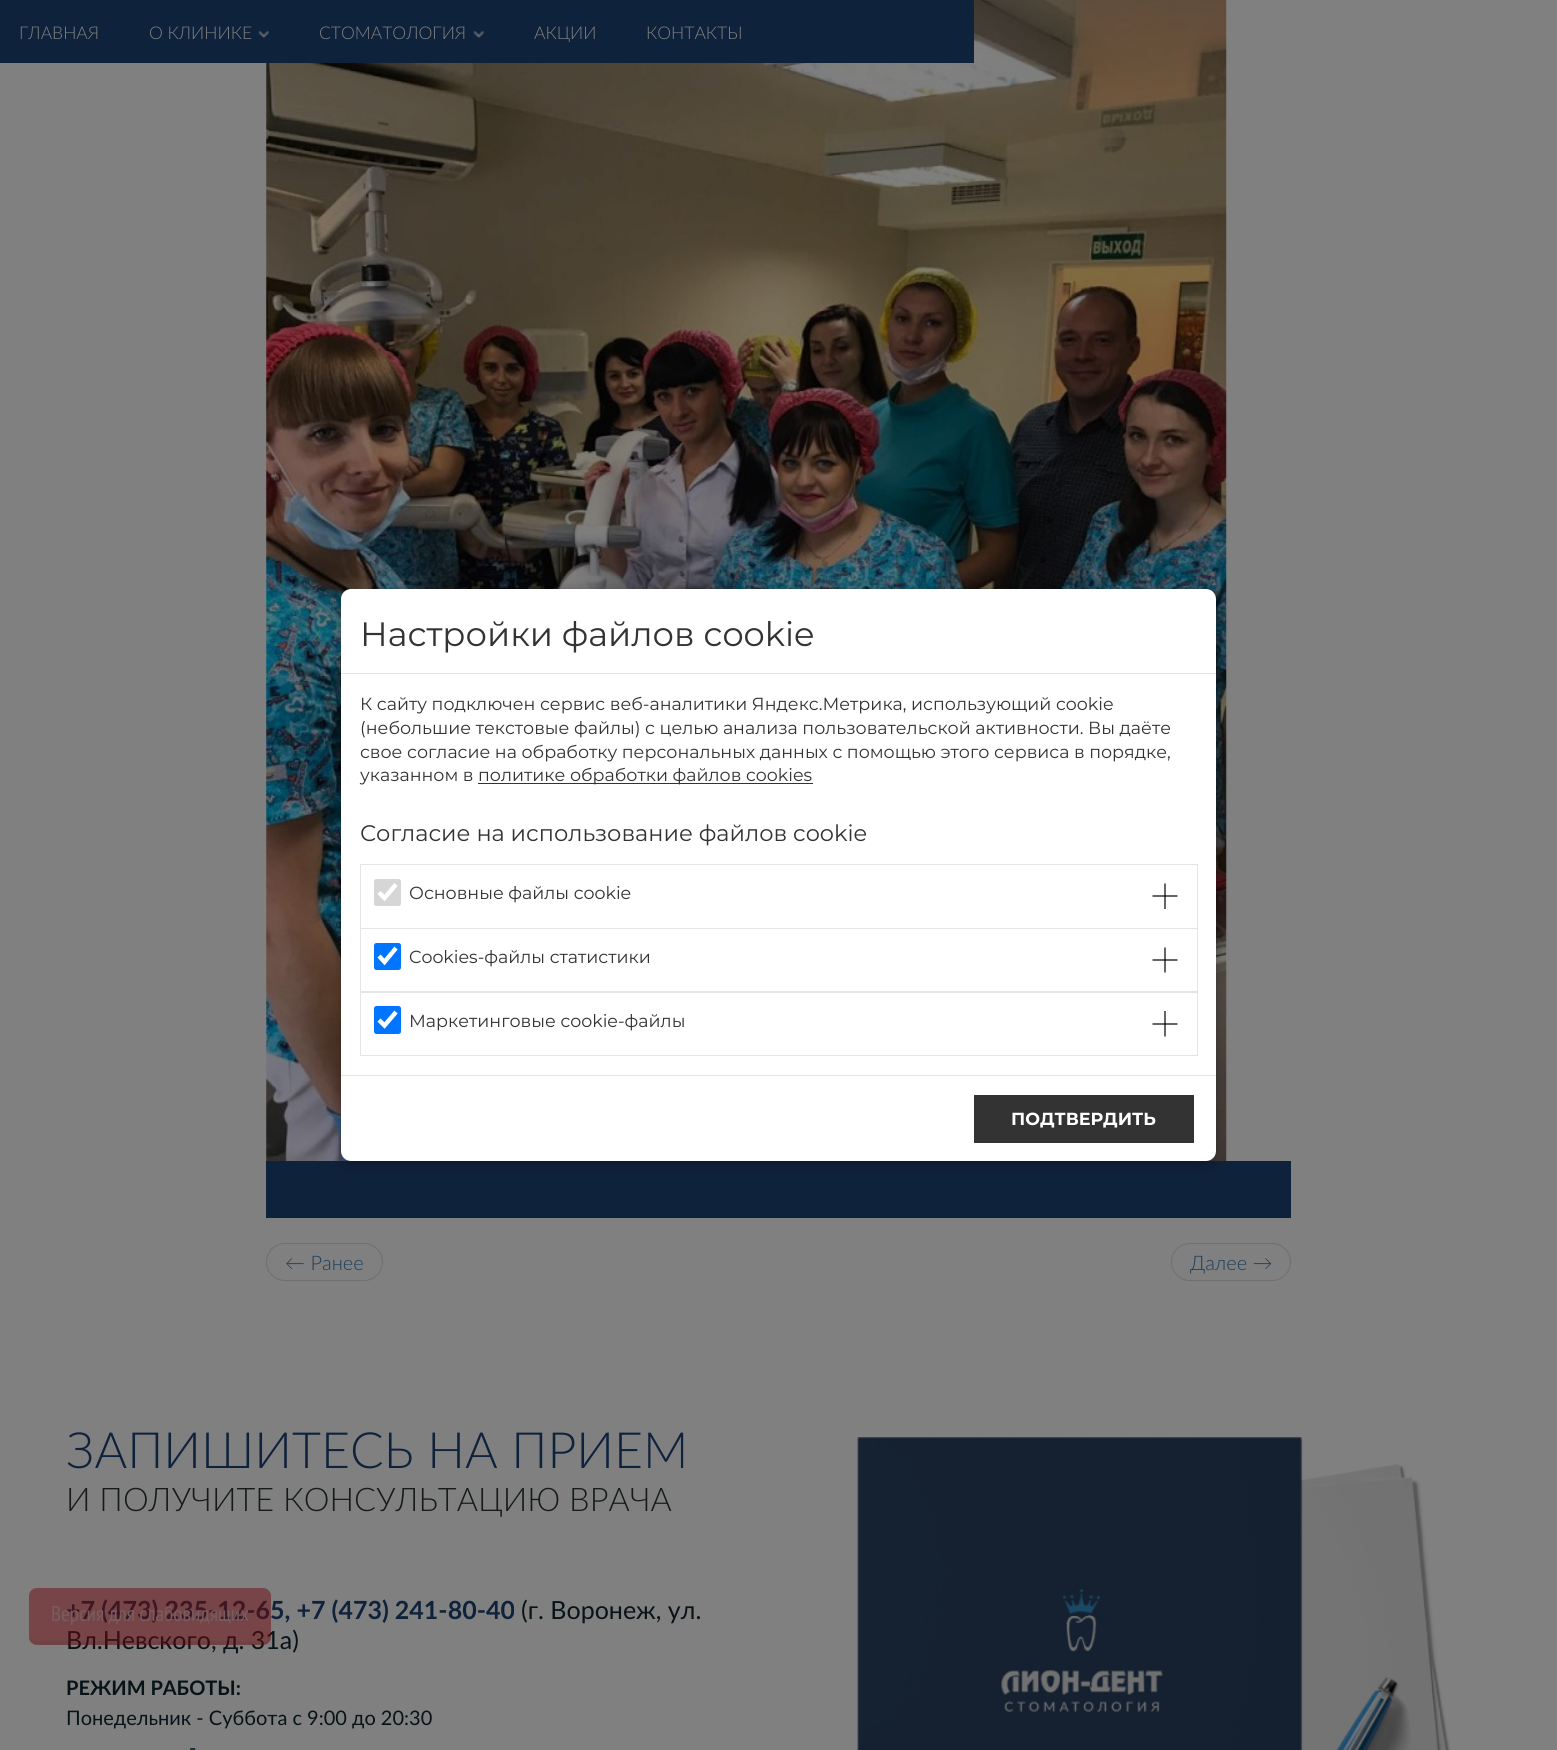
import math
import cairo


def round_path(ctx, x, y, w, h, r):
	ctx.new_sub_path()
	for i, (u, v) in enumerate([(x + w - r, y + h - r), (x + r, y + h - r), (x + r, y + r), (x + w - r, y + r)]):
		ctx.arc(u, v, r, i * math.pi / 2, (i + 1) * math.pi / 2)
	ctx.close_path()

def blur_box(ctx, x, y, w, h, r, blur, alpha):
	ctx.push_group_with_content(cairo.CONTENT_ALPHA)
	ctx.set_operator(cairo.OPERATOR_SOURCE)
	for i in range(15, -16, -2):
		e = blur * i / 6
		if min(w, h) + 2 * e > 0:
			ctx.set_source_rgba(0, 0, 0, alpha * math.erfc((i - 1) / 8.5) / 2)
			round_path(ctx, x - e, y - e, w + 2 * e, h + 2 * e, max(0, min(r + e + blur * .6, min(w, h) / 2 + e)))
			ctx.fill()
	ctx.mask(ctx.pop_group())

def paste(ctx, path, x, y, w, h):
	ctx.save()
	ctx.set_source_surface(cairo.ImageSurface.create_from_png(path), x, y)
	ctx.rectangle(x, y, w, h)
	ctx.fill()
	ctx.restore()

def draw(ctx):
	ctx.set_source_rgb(0.502, 0.502, 0.502)
	ctx.paint()
	paste(ctx, 'media/3.png', 266, 0, 961, 1161)
	ctx.set_source_rgb(0.059, 0.133, 0.231)
	ctx.rectangle(0, 0, 974, 63)
	ctx.fill()
	ctx.select_font_face('Lato Light')
	ctx.set_font_size(17.5)
	ctx.set_source_rgb(0.502, 0.502, 0.502)
	ctx.move_to(19, 39)
	ctx.show_text('ГЛАВНАЯ')
	ctx.move_to(149, 39)
	ctx.show_text('О КЛИНИКЕ')
	paste(ctx, 'media/1.png', 258, 31, 11, 8)
	ctx.move_to(319, 39)
	ctx.show_text('СТОМАТОЛОГИЯ')
	paste(ctx, 'media/2.png', 473, 31, 11, 8)
	ctx.move_to(534, 39)
	ctx.show_text('АКЦИИ')
	ctx.move_to(646, 39)
	ctx.show_text('КОНТАКТЫ')
	ctx.select_font_face('Lato', cairo.FONT_SLANT_NORMAL, cairo.FONT_WEIGHT_BOLD)
	ctx.set_font_size(25)
	ctx.set_source_rgb(0.059, 0.133, 0.231)
	ctx.move_to(66, 1619)
	ctx.show_text('+7 (473) 235-12-65, +7 (473) 241-80-40')
	ctx.select_font_face('Lato')
	ctx.set_source_rgb(0.031, 0.078, 0.09)
	ctx.move_to(66, 1649)
	ctx.show_text('Вл.Невского, д. 31а)')
	ctx.set_source_rgba(0.431, 0.043, 0.055, 0.5)
	round_path(ctx, 29, 1588, 242, 57, 8)
	ctx.fill()
	ctx.set_source_rgba(0, 0, 0, 0.05)
	ctx.new_path()
	ctx.move_to(29, 1634)
	ctx.line_to(29, 1637)
	ctx.curve_to(29, 1641, 33, 1645, 37, 1645)
	ctx.line_to(263, 1645)
	ctx.curve_to(267, 1645, 271, 1641, 271, 1637)
	ctx.line_to(271, 1634)
	ctx.curve_to(271, 1638, 268, 1641, 264, 1641)
	ctx.line_to(36, 1641)
	ctx.curve_to(32, 1641, 29, 1638, 29, 1634)
	ctx.close_path()
	ctx.fill()
	ctx.select_font_face('PT Sans Narrow')
	ctx.set_font_size(21.25)
	ctx.set_source_rgb(0.459, 0.369, 0.376)
	ctx.move_to(51, 1621)
	ctx.show_text('Версия для слабовидящих')
	ctx.set_source_rgb(0.059, 0.133, 0.231)
	ctx.rectangle(266, 1161, 1025, 57)
	ctx.fill()
	ctx.set_source_rgb(0, 0, 0)
	blur_box(ctx, 341, 591, 875, 573, 10, 6, 0.3)
	ctx.set_source_rgb(1, 1, 1)
	round_path(ctx, 341, 589, 875, 572, 10)
	ctx.fill()
	ctx.set_source_rgb(0.898, 0.898, 0.898)
	ctx.rectangle(341, 673, 875, 1)
	ctx.fill()
	ctx.select_font_face('Montserrat')
	ctx.set_font_size(33.75)
	ctx.set_source_rgb(0.2, 0.2, 0.2)
	ctx.move_to(360, 646)
	ctx.show_text('Настройки файлов cookie')
	ctx.set_source_rgb(0.898, 0.898, 0.898)
	ctx.rectangle(341, 1075, 875, 1)
	ctx.fill()
	ctx.set_font_size(17.5)
	ctx.set_source_rgb(0.2, 0.2, 0.2)
	for x, y, s in [
		(360, 710, 'К сайту подключен сервис веб-аналитики Яндекс.Метрика, использующий cookie'),
		(360, 734, '(небольшие текстовые файлы) с целью анализа пользовательской активности. Вы даёте'),
		(360, 758, 'свое согласие на обработку персональных данных с помощью этого сервиса в порядке,'),
		(360, 781, 'указанном в'),
	]:
		ctx.move_to(x, y)
		ctx.show_text(s)
	ctx.rectangle(478, 783, 335, 1)
	ctx.fill()
	ctx.move_to(478, 781)
	ctx.show_text('политике обработки файлов cookies')
	ctx.set_font_size(22.5)
	ctx.move_to(360, 841)
	ctx.show_text('Согласие на использование файлов cookie')
	ctx.rectangle(360.5, 864.5, 837, 64)
	ctx.set_source_rgb(0.898, 0.898, 0.898)
	ctx.set_line_width(1)
	ctx.stroke()
	ctx.set_source_rgb(0.839, 0.839, 0.839)
	round_path(ctx, 374, 879, 27, 27, 2.5)
	ctx.fill()
	ctx.new_path()
	ctx.move_to(379, 892.5)
	ctx.line_to(384.5, 898)
	ctx.line_to(396, 884.5)
	ctx.set_source_rgb(1, 1, 1)
	ctx.set_line_width(4.4)
	ctx.stroke()
	ctx.set_font_size(17.5)
	ctx.set_source_rgb(0.2, 0.2, 0.2)
	ctx.move_to(409, 899)
	ctx.show_text('Основные файлы cookie')
	ctx.new_path()
	ctx.move_to(1165, 883.5)
	ctx.line_to(1165, 909)
	ctx.move_to(1177.5, 896)
	ctx.line_to(1152.5, 896)
	ctx.set_source_rgb(0, 0, 0)
	ctx.set_line_width(1.2)
	ctx.stroke()
	ctx.rectangle(360.5, 928.5, 837, 64)
	ctx.set_source_rgb(0.898, 0.898, 0.898)
	ctx.set_line_width(1)
	ctx.stroke()
	ctx.set_source_rgb(0, 0.459, 1)
	round_path(ctx, 374, 943, 27, 27, 2.5)
	ctx.fill()
	ctx.new_path()
	ctx.move_to(379, 956)
	ctx.line_to(384.5, 962)
	ctx.line_to(396, 948)
	ctx.set_source_rgb(1, 1, 1)
	ctx.set_line_width(4.4)
	ctx.stroke()
	ctx.set_source_rgb(0.2, 0.2, 0.2)
	ctx.move_to(409, 963)
	ctx.show_text('Cookies-файлы статистики')
	ctx.new_path()
	ctx.move_to(1165, 947.5)
	ctx.line_to(1165, 972.5)
	ctx.move_to(1177.5, 960)
	ctx.line_to(1152.5, 960)
	ctx.set_source_rgb(0, 0, 0)
	ctx.set_line_width(1.2)
	ctx.stroke()
	ctx.rectangle(360.5, 991.5, 837, 64)
	ctx.set_source_rgb(0.898, 0.898, 0.898)
	ctx.set_line_width(1)
	ctx.stroke()
	ctx.set_source_rgb(0, 0.459, 1)
	round_path(ctx, 374, 1006, 27, 28, 2.5)
	ctx.fill()
	ctx.new_path()
	ctx.move_to(379, 1020)
	ctx.line_to(384.5, 1025.5)
	ctx.line_to(396, 1012)
	ctx.set_source_rgb(1, 1, 1)
	ctx.set_line_width(4.4)
	ctx.stroke()
	ctx.set_source_rgb(0.2, 0.2, 0.2)
	ctx.move_to(409, 1027)
	ctx.show_text('Маркетинговые cookie-файлы')
	ctx.new_path()
	ctx.move_to(1165, 1011)
	ctx.line_to(1165, 1036.5)
	ctx.move_to(1177.5, 1024)
	ctx.line_to(1152.5, 1024)
	ctx.set_source_rgb(0, 0, 0)
	ctx.set_line_width(1.2)
	ctx.stroke()
	ctx.set_source_rgb(0.2, 0.2, 0.2)
	ctx.rectangle(974, 1095, 220, 48)
	ctx.fill()
	ctx.select_font_face('Montserrat', cairo.FONT_SLANT_NORMAL, cairo.FONT_WEIGHT_BOLD)
	ctx.set_source_rgb(1, 1, 1)
	ctx.move_to(1011, 1125)
	ctx.show_text('ПОДТВЕРДИТЬ')
	round_path(ctx, 266.5, 1243.5, 116, 37, 18.5)
	ctx.set_source_rgb(0.435, 0.435, 0.435)
	ctx.set_line_width(1)
	ctx.stroke()
	ctx.select_font_face('Lato Light')
	ctx.set_font_size(20)
	ctx.set_source_rgb(0.102, 0.239, 0.361)
	ctx.move_to(285, 1270)
	ctx.show_text('← Ранее')
	round_path(ctx, 1171.5, 1243.5, 119, 37, 18.5)
	ctx.set_source_rgb(0.435, 0.435, 0.435)
	ctx.stroke()
	ctx.set_source_rgb(0.102, 0.239, 0.361)
	ctx.move_to(1190, 1270)
	ctx.show_text('Далее →')
	ctx.set_font_size(50)
	ctx.set_source_rgb(0.059, 0.133, 0.231)
	ctx.move_to(66, 1468)
	ctx.show_text('ЗАПИШИТЕСЬ НА ПРИЕМ')
	ctx.set_font_size(32.5)
	ctx.set_source_rgb(0.086, 0.102, 0.106)
	ctx.move_to(66, 1511)
	ctx.show_text('И ПОЛУЧИТЕ КОНСУЛЬТАЦИЮ ВРАЧА')
	ctx.select_font_face('Lato')
	ctx.set_font_size(25)
	ctx.set_source_rgb(0.031, 0.078, 0.09)
	ctx.move_to(521, 1619)
	ctx.show_text('(г. Воронеж, ул.')
	ctx.select_font_face('Lato', cairo.FONT_SLANT_NORMAL, cairo.FONT_WEIGHT_BOLD)
	ctx.set_font_size(20)
	ctx.move_to(66, 1695)
	ctx.show_text('РЕЖИМ РАБОТЫ:')
	ctx.select_font_face('Lato')
	ctx.move_to(66, 1725)
	ctx.show_text('Понедельник - Суббота с 9:00 до 20:30')
	ctx.move_to(189, 1755)
	ctx.show_text('-')
	paste(ctx, 'media/4.png', 857, 1437, 594, 313)
	paste(ctx, 'media/5.png', 1336, 1677, 75, 73)


surface = cairo.ImageSurface(cairo.FORMAT_RGB24, 1557, 1750)
ctx = cairo.Context(surface)
options = cairo.FontOptions()
options.set_hint_metrics(cairo.HINT_METRICS_OFF)
options.set_hint_style(cairo.HINT_STYLE_NONE)
ctx.set_font_options(options)
ctx.set_miter_limit(4)
draw(ctx)
surface.write_to_png('image.png')
